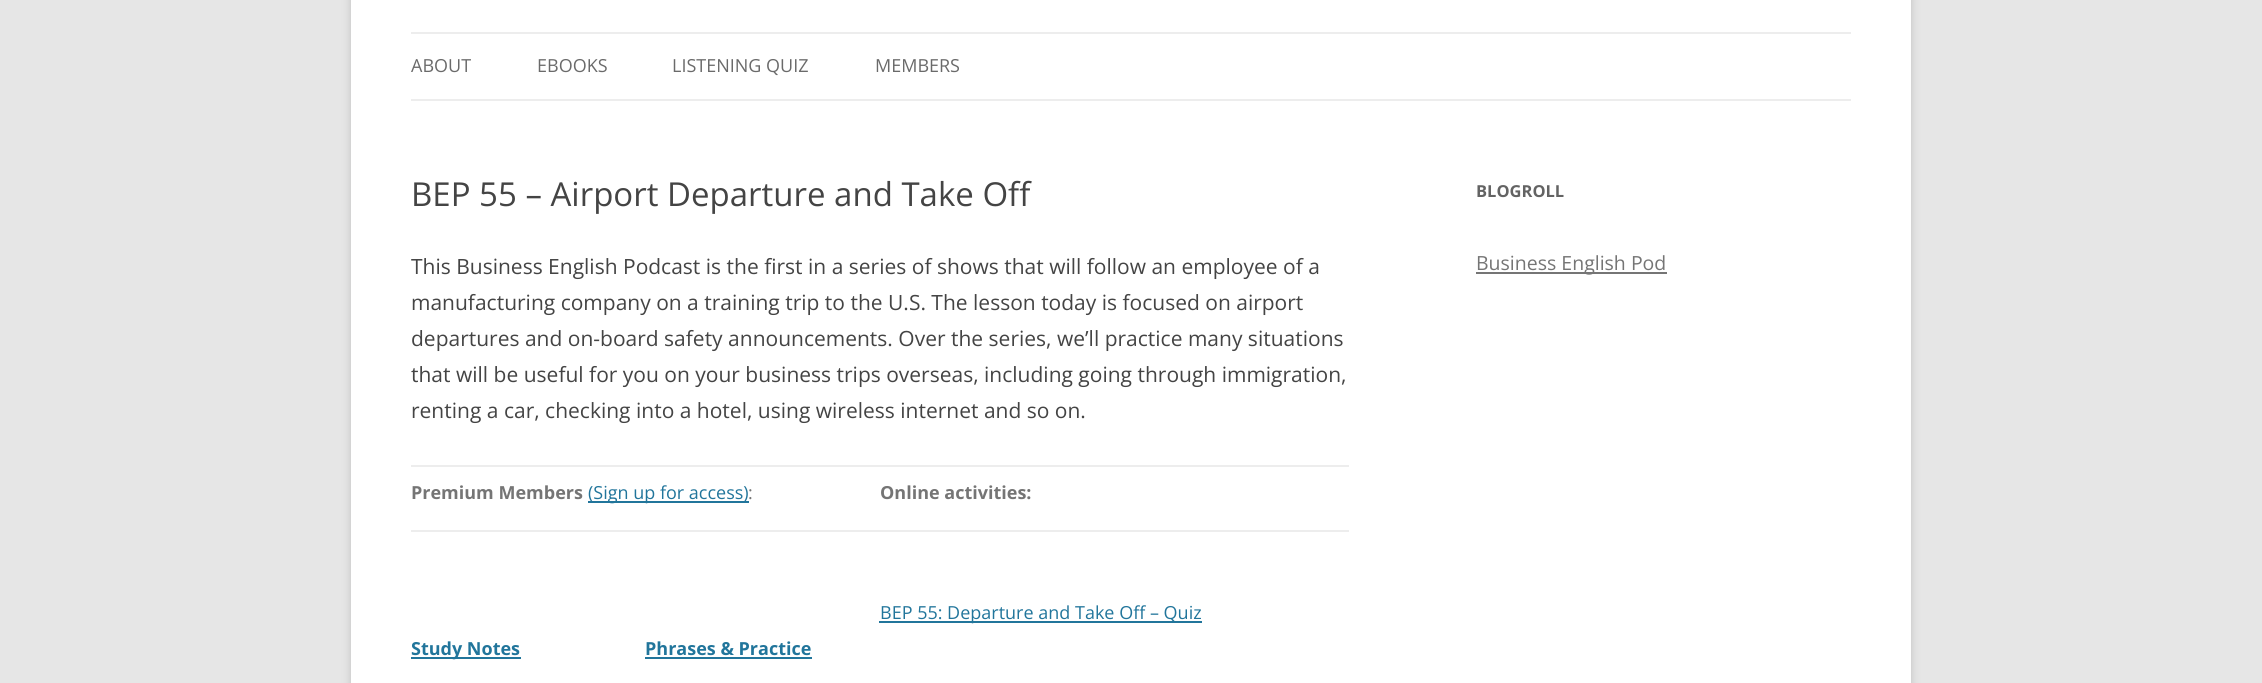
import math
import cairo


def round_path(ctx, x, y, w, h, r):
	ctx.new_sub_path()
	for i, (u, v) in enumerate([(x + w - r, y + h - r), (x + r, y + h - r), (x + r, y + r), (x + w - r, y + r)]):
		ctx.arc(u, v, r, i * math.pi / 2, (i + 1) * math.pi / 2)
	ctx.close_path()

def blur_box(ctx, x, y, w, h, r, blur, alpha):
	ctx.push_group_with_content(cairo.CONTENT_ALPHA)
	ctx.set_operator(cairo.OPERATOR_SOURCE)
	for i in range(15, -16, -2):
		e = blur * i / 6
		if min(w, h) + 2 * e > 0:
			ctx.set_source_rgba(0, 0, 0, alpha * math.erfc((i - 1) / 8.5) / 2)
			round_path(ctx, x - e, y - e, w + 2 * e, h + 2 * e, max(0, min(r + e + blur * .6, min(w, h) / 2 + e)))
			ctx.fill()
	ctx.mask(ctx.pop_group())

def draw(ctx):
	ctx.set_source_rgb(0.902, 0.902, 0.902)
	ctx.paint()
	ctx.set_source_rgb(0.392, 0.392, 0.392)
	blur_box(ctx, 351, -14, 1560, 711, 0, 4.5, 0.3)
	ctx.set_source_rgb(1, 1, 1)
	ctx.rectangle(351, 0, 1560, 683)
	ctx.fill()
	ctx.set_source_rgb(0.929, 0.929, 0.929)
	ctx.rectangle(411, 32, 1440, 2)
	ctx.rectangle(411, 99, 1440, 2)
	ctx.fill()
	ctx.select_font_face('Open Sans')
	ctx.set_font_size(18)
	ctx.set_source_rgb(0.416, 0.416, 0.416)
	for x, y, s in [
		(411, 72, 'ABOUT'),
		(537, 72, 'EBOOKS'),
		(672, 72, 'LISTENING QUIZ'),
		(875, 72, 'MEMBERS'),
	]:
		ctx.move_to(x, y)
		ctx.show_text(s)
	ctx.set_font_size(33)
	ctx.set_source_rgb(0.267, 0.267, 0.267)
	ctx.move_to(411, 206)
	ctx.show_text('BEP 55 – Airport Departure and Take Off')
	ctx.set_font_size(21)
	for x, y, s in [
		(411, 274, 'This Business English Podcast is the first in a series of shows that will follow an employee of a'),
		(411, 310, 'manufacturing company on a training trip to the U.S. The lesson today is focused on airport'),
		(411, 346, 'departures and on-board safety announcements. Over the series, we’ll practice many situations'),
		(411, 382, 'that will be useful for you on your business trips overseas, including going through immigration,'),
		(411, 418, 'renting a car, checking into a hotel, using wireless internet and so on.'),
	]:
		ctx.move_to(x, y)
		ctx.show_text(s)
	ctx.select_font_face('Open Sans', cairo.FONT_SLANT_NORMAL, cairo.FONT_WEIGHT_BOLD)
	ctx.set_font_size(18)
	ctx.set_source_rgb(0.459, 0.459, 0.459)
	ctx.move_to(411, 499)
	ctx.show_text('Premium Members')
	ctx.set_source_rgb(0.129, 0.459, 0.608)
	ctx.rectangle(588, 501, 161, 2)
	ctx.fill()
	ctx.select_font_face('Open Sans')
	ctx.move_to(588, 499)
	ctx.show_text('(Sign up for access)')
	ctx.set_source_rgb(0.459, 0.459, 0.459)
	ctx.move_to(748, 499)
	ctx.show_text(':')
	ctx.set_source_rgb(0.929, 0.929, 0.929)
	ctx.rectangle(411, 465, 938, 2)
	ctx.fill()
	ctx.select_font_face('Open Sans', cairo.FONT_SLANT_NORMAL, cairo.FONT_WEIGHT_BOLD)
	ctx.set_source_rgb(0.459, 0.459, 0.459)
	ctx.move_to(880, 499)
	ctx.show_text('Online activities:')
	ctx.set_source_rgb(0.929, 0.929, 0.929)
	ctx.rectangle(411, 530, 938, 2)
	ctx.fill()
	ctx.set_source_rgb(0.129, 0.459, 0.608)
	ctx.rectangle(879, 621, 323, 2)
	ctx.fill()
	ctx.select_font_face('Open Sans')
	ctx.move_to(880, 619)
	ctx.show_text('BEP 55: Departure and Take Off – Quiz')
	ctx.rectangle(411, 657, 110, 2)
	ctx.fill()
	ctx.select_font_face('Open Sans', cairo.FONT_SLANT_NORMAL, cairo.FONT_WEIGHT_BOLD)
	ctx.move_to(411, 655)
	ctx.show_text('Study Notes')
	ctx.move_to(645, 655)
	ctx.show_text('Phrases & Practice')
	ctx.rectangle(645, 657, 167, 2)
	ctx.fill()
	ctx.set_font_size(16.5)
	ctx.set_source_rgb(0.388, 0.388, 0.388)
	ctx.move_to(1476, 197)
	ctx.show_text('BLOGROLL')
	ctx.set_source_rgb(0.459, 0.459, 0.459)
	ctx.rectangle(1476, 272, 191, 2)
	ctx.fill()
	ctx.select_font_face('Open Sans')
	ctx.set_font_size(19.5)
	ctx.move_to(1476, 270)
	ctx.show_text('Business English Pod')


surface = cairo.ImageSurface(cairo.FORMAT_RGB24, 2262, 683)
ctx = cairo.Context(surface)
options = cairo.FontOptions()
options.set_hint_metrics(cairo.HINT_METRICS_OFF)
options.set_hint_style(cairo.HINT_STYLE_NONE)
ctx.set_font_options(options)
ctx.set_miter_limit(4)
draw(ctx)
surface.write_to_png('image.png')
